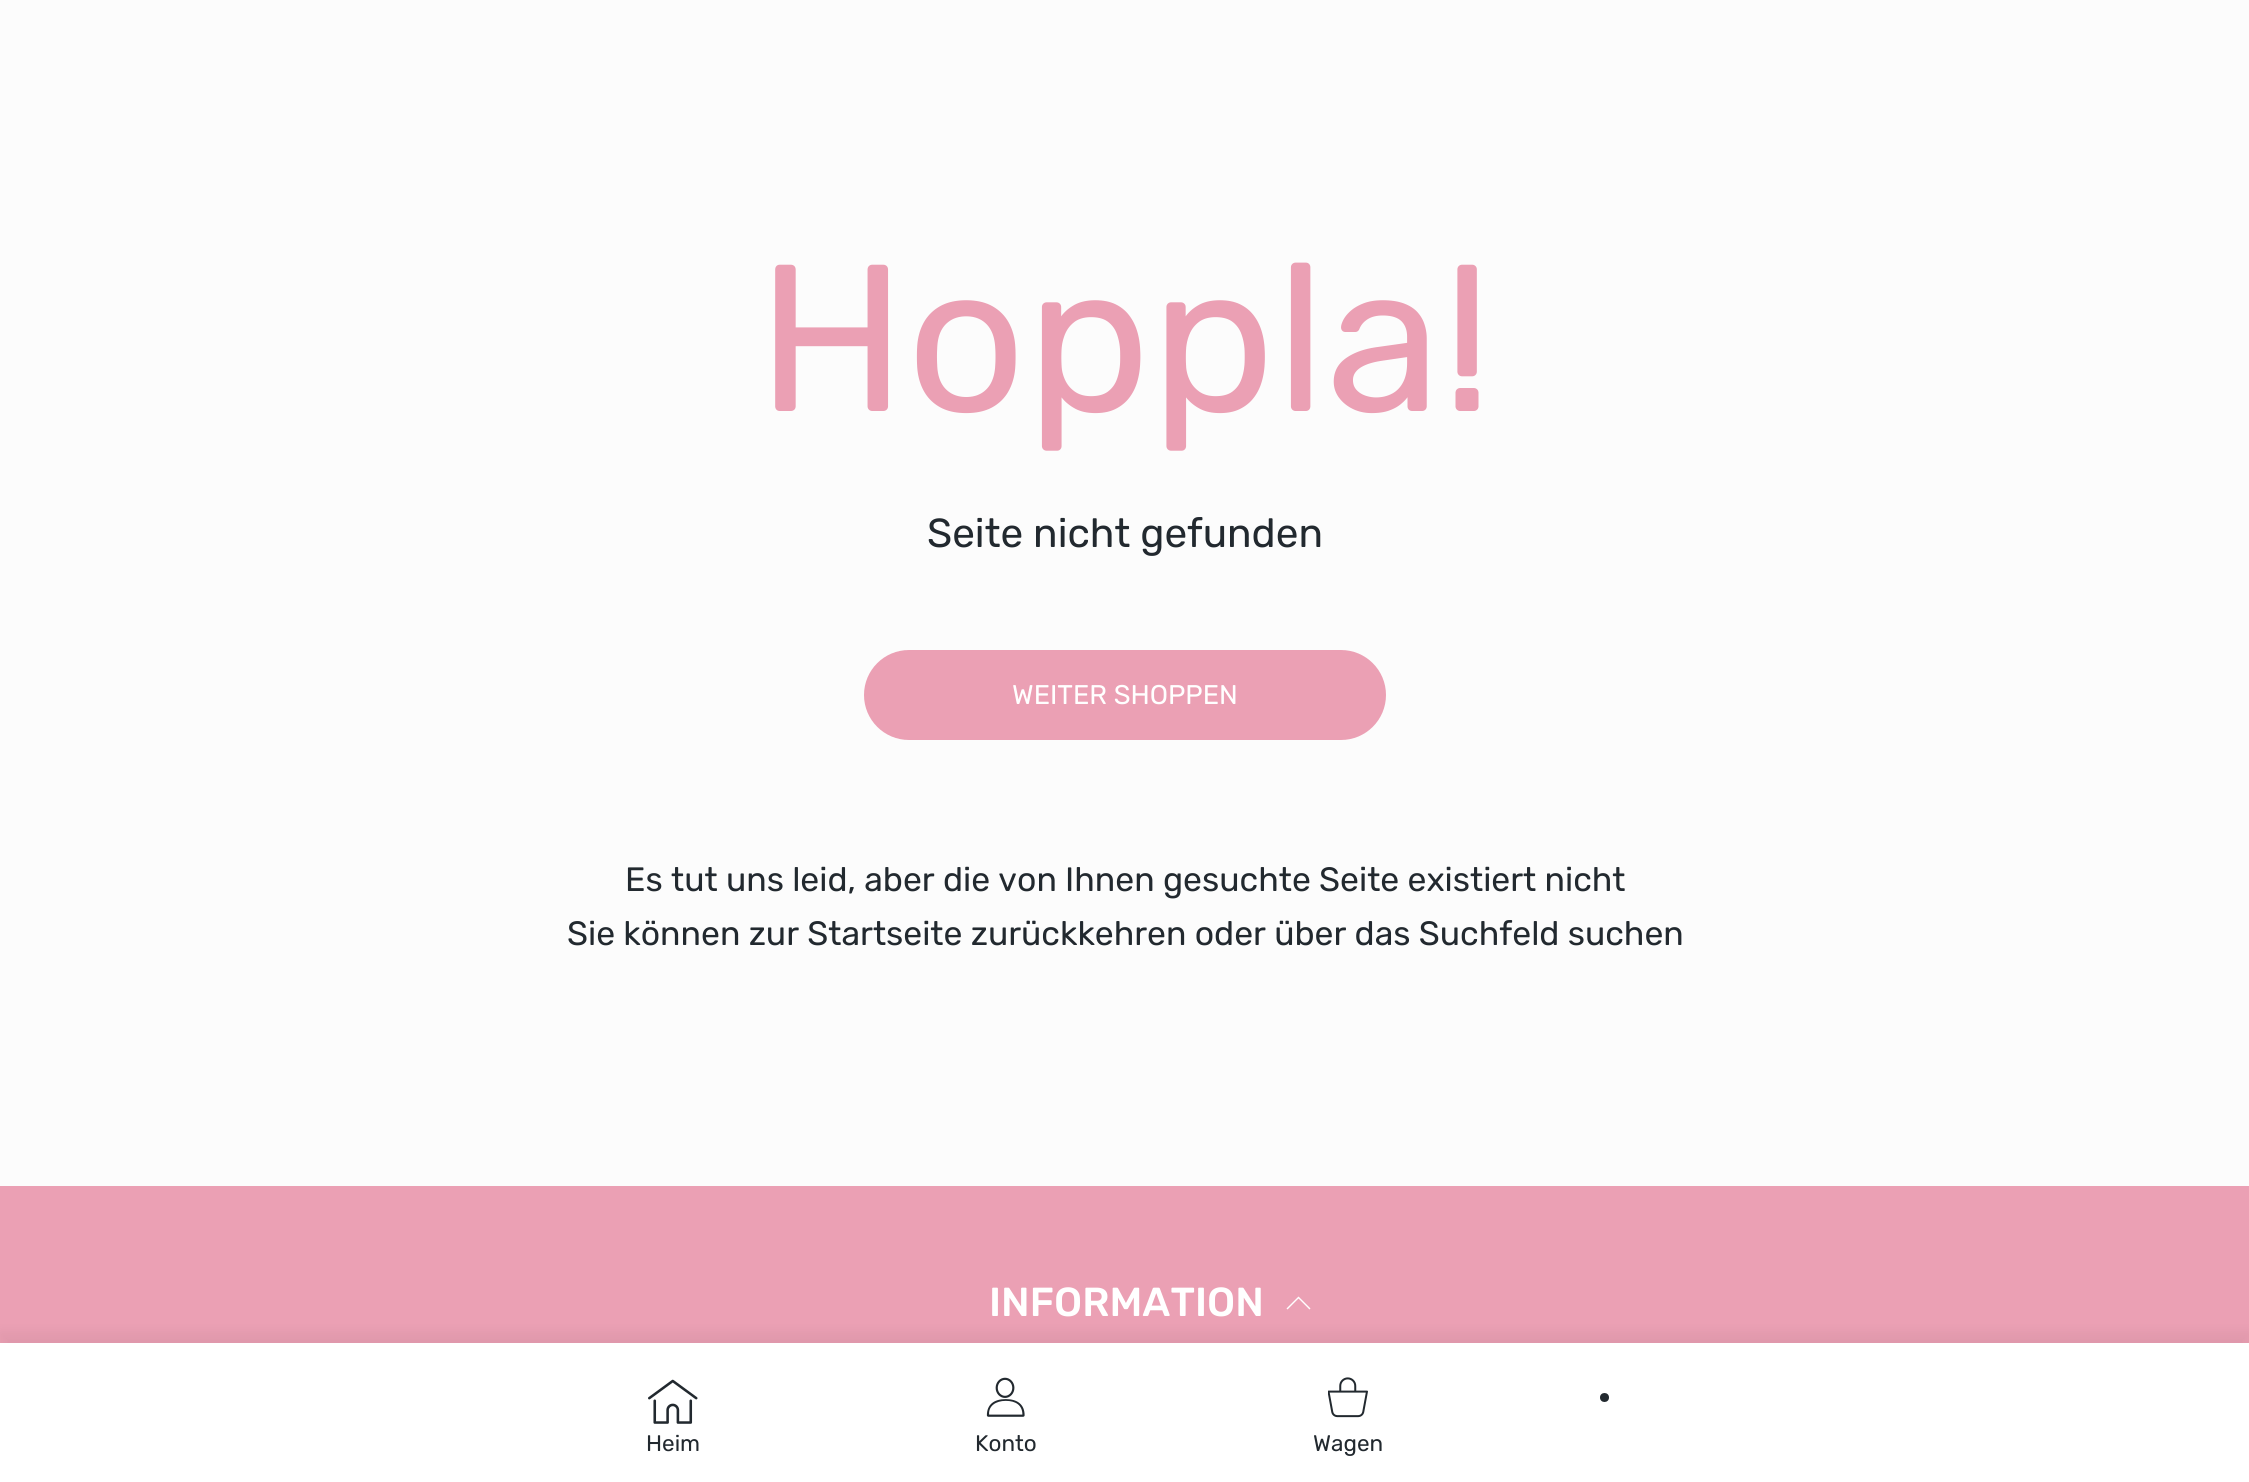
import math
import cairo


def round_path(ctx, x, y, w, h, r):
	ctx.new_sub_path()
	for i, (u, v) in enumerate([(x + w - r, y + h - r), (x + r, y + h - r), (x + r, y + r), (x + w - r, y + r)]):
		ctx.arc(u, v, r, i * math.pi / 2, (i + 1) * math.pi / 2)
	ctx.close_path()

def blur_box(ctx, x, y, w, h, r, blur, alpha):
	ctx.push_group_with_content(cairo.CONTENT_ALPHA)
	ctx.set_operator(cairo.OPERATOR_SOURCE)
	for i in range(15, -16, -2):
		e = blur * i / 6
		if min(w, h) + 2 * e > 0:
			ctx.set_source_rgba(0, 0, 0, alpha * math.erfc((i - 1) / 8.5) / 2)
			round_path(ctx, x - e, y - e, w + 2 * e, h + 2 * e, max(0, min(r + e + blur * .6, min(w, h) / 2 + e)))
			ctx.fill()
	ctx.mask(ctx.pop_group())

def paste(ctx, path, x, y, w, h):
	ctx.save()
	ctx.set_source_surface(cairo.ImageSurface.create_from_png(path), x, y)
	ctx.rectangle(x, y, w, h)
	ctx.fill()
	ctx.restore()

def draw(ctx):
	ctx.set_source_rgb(0.988, 0.988, 0.988)
	ctx.paint()
	ctx.select_font_face('Rubik')
	ctx.set_font_size(209)
	ctx.set_source_rgb(0.918, 0.627, 0.706)
	ctx.move_to(757, 411)
	ctx.show_text('Hoppla!')
	ctx.set_font_size(40.5)
	ctx.set_source_rgb(0.133, 0.161, 0.184)
	ctx.move_to(927, 547)
	ctx.show_text('Seite nicht gefunden')
	ctx.set_source_rgb(0.918, 0.627, 0.706)
	round_path(ctx, 864, 650, 522, 90, 45)
	ctx.fill()
	ctx.set_font_size(27)
	ctx.set_source_rgb(1, 1, 1)
	ctx.move_to(1012, 704)
	ctx.show_text('WEITER SHOPPEN')
	ctx.set_font_size(33.75)
	ctx.set_source_rgb(0.133, 0.161, 0.184)
	ctx.move_to(625, 891)
	ctx.show_text('Es tut uns leid, aber die von Ihnen gesuchte Seite existiert nicht')
	ctx.move_to(567, 945)
	ctx.show_text('Sie können zur Startseite zurückkehren oder über das Suchfeld suchen')
	ctx.set_source_rgb(0.918, 0.627, 0.706)
	ctx.rectangle(0, 1186, 2249, 157)
	ctx.fill()
	ctx.select_font_face('Rubik Medium')
	ctx.set_font_size(40.5)
	ctx.set_source_rgb(1, 1, 1)
	ctx.move_to(989, 1316)
	ctx.show_text('INFORMATION')
	ctx.new_path()
	ctx.move_to(1286.5, 1308.5)
	ctx.line_to(1287.5, 1309.5)
	ctx.line_to(1298.5, 1298.5)
	ctx.line_to(1309.5, 1309.5)
	ctx.line_to(1310.5, 1308.5)
	ctx.line_to(1298.5, 1296.5)
	ctx.close_path()
	ctx.fill()
	ctx.set_source_rgb(0, 0, 0)
	blur_box(ctx, 0, 1332, 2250, 140, 0, 5.5, 0.05)
	ctx.set_source_rgb(1, 1, 1)
	ctx.rectangle(0, 1343, 2249, 139)
	ctx.fill()
	ctx.set_source_rgb(0.133, 0.161, 0.184)
	ctx.arc(1604.5, 1397.5, 4.5, 0, 2 * math.pi)
	ctx.fill()
	paste(ctx, 'media/1.png', 648, 1379, 50, 45)
	ctx.select_font_face('Rubik')
	ctx.set_font_size(22.5)
	ctx.move_to(646, 1451)
	ctx.show_text('Heim')
	paste(ctx, 'media/2.png', 986, 1377, 39, 40)
	ctx.move_to(975, 1451)
	ctx.show_text('Konto')
	paste(ctx, 'media/3.png', 1328, 1377, 40, 41)
	ctx.move_to(1313, 1451)
	ctx.show_text('Wagen')


surface = cairo.ImageSurface(cairo.FORMAT_RGB24, 2249, 1482)
ctx = cairo.Context(surface)
options = cairo.FontOptions()
options.set_hint_metrics(cairo.HINT_METRICS_OFF)
options.set_hint_style(cairo.HINT_STYLE_NONE)
ctx.set_font_options(options)
ctx.set_miter_limit(4)
draw(ctx)
surface.write_to_png('image.png')
